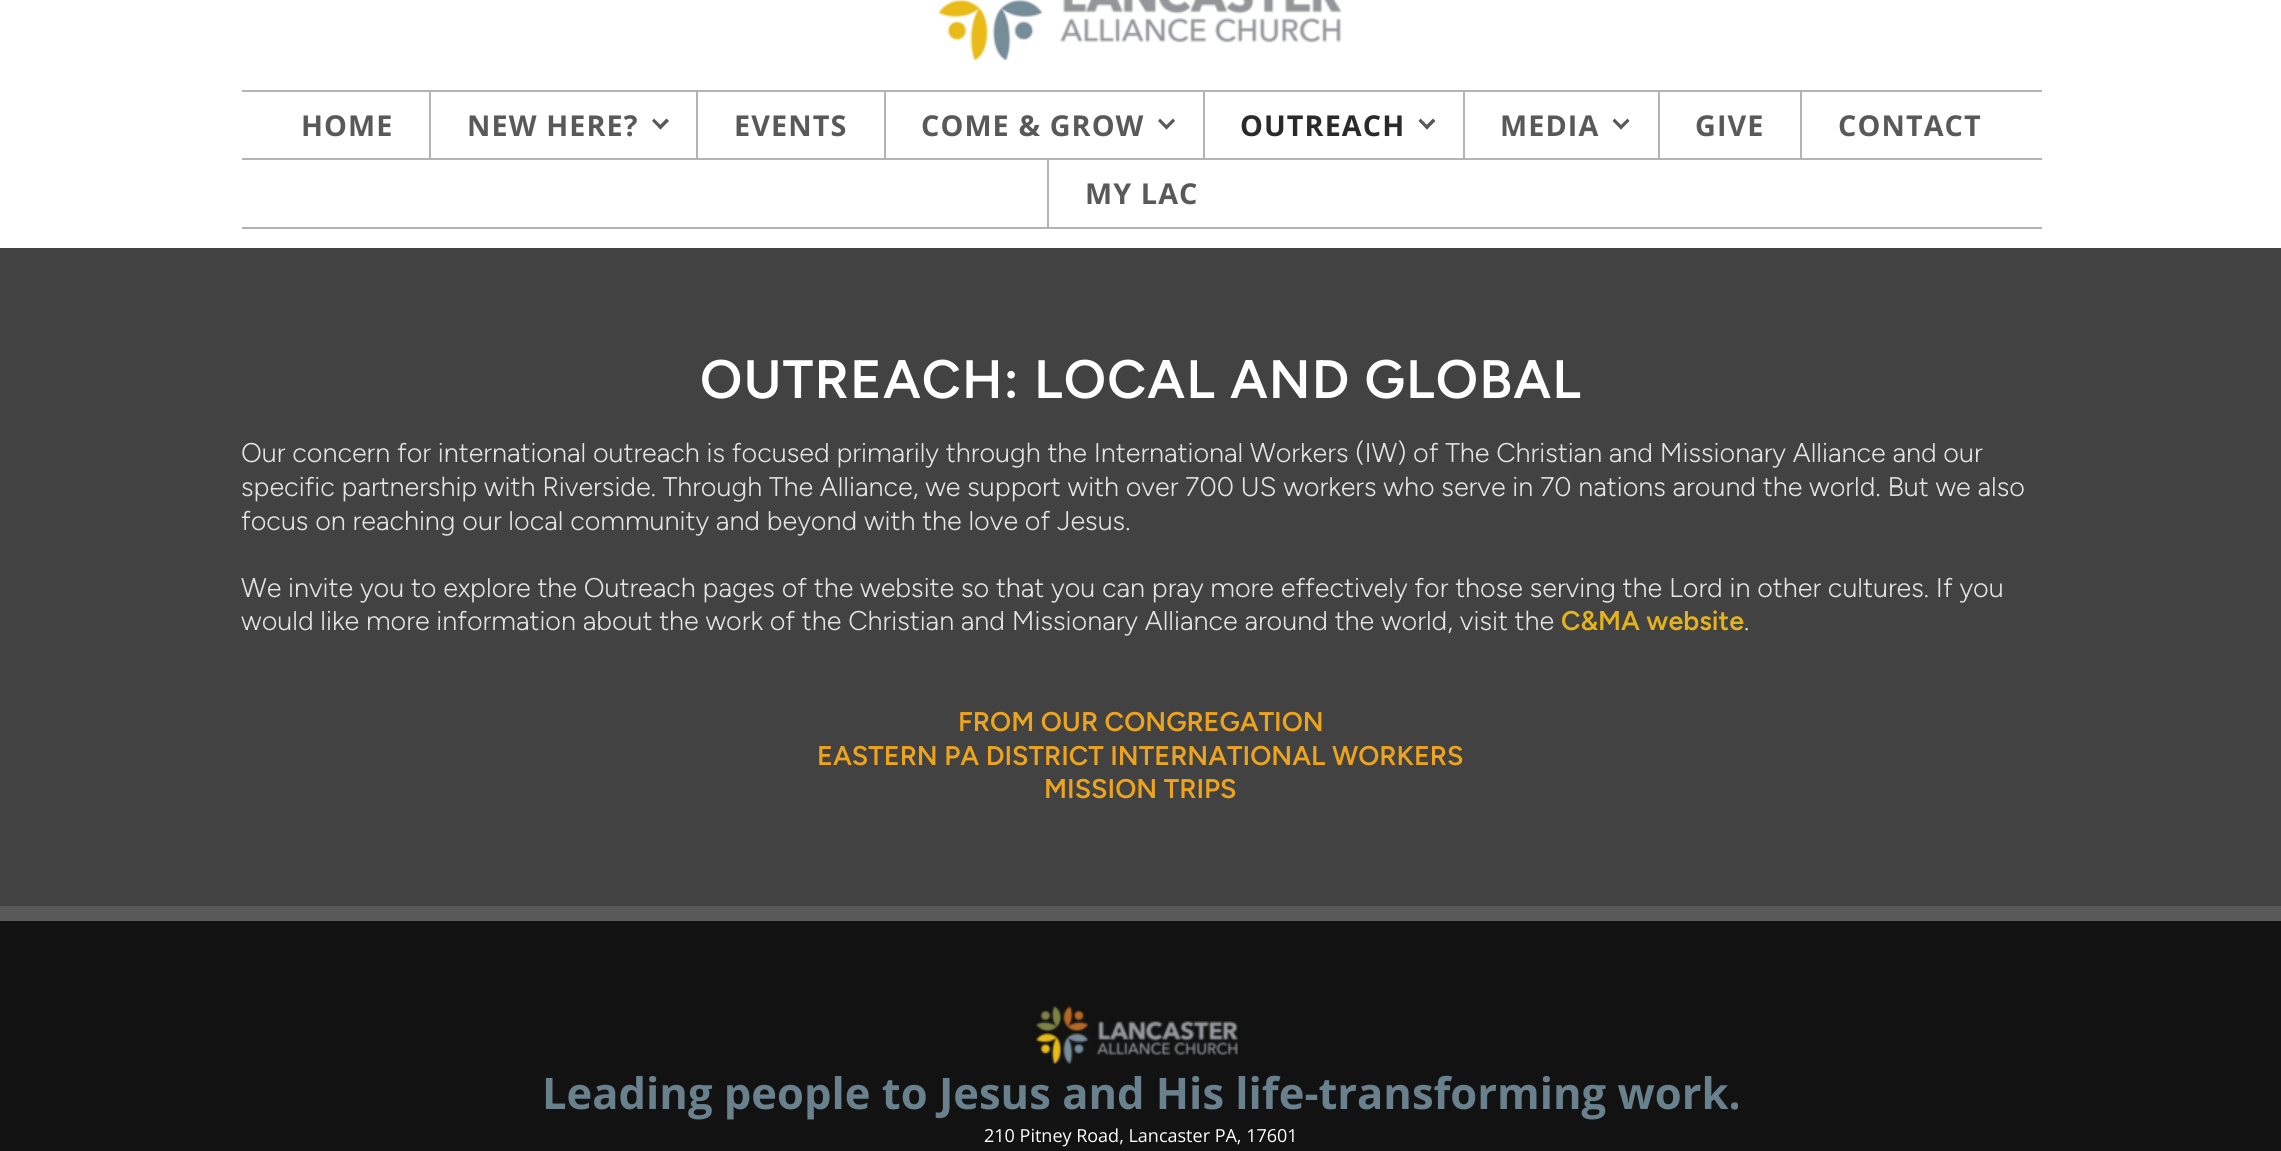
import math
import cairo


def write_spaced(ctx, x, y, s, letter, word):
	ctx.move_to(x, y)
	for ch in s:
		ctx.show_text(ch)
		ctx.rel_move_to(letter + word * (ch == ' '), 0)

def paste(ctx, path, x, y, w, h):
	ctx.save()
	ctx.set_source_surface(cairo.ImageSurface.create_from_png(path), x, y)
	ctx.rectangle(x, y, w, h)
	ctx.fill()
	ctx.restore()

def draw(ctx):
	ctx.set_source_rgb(0.071, 0.071, 0.071)
	ctx.paint()
	ctx.set_source_rgb(1, 1, 1)
	ctx.rectangle(0, 0, 2281, 248)
	ctx.fill()
	paste(ctx, 'media/1.png', 938, 0, 404, 60)
	ctx.set_source_rgb(0.706, 0.706, 0.706)
	ctx.rectangle(242, 90, 1800, 2)
	ctx.fill()
	ctx.rectangle(242, 227, 1800, 2)
	ctx.fill()
	ctx.select_font_face('Open Sans', cairo.FONT_SLANT_NORMAL, cairo.FONT_WEIGHT_BOLD)
	ctx.set_font_size(28.75)
	ctx.set_source_rgb(0.349, 0.349, 0.349)
	write_spaced(ctx, 301, 136, 'HOME', 1.1, 0)
	ctx.set_source_rgb(0.706, 0.706, 0.706)
	ctx.rectangle(242, 158, 1800, 2)
	ctx.fill()
	ctx.rectangle(429, 92, 2, 67)
	ctx.fill()
	ctx.set_source_rgb(0.349, 0.349, 0.349)
	write_spaced(ctx, 467, 136, 'NEW HERE?', 1.1, 0)
	ctx.new_path()
	ctx.move_to(666.5, 118.5)
	ctx.line_to(669, 121)
	ctx.line_to(660.5, 129.5)
	ctx.line_to(658, 127)
	ctx.close_path()
	ctx.fill()
	ctx.new_path()
	ctx.move_to(654, 118.5)
	ctx.line_to(662.5, 127)
	ctx.line_to(660.5, 129.5)
	ctx.line_to(652, 121)
	ctx.close_path()
	ctx.fill()
	ctx.set_source_rgb(0.706, 0.706, 0.706)
	ctx.rectangle(696, 92, 2, 67)
	ctx.fill()
	ctx.set_source_rgb(0.349, 0.349, 0.349)
	write_spaced(ctx, 734, 136, 'EVENTS', 1.1, 0)
	ctx.set_source_rgb(0.706, 0.706, 0.706)
	ctx.rectangle(884, 92, 2, 67)
	ctx.fill()
	ctx.set_source_rgb(0.349, 0.349, 0.349)
	write_spaced(ctx, 921, 136, 'COME & GROW', 1.1, 0)
	ctx.new_path()
	ctx.move_to(1173, 118.5)
	ctx.line_to(1175, 121)
	ctx.line_to(1166.5, 129.5)
	ctx.line_to(1164.5, 127)
	ctx.close_path()
	ctx.fill()
	ctx.new_path()
	ctx.move_to(1160, 118.5)
	ctx.line_to(1168.5, 127)
	ctx.line_to(1166.5, 129.5)
	ctx.line_to(1158, 121)
	ctx.close_path()
	ctx.fill()
	ctx.set_source_rgb(0.706, 0.706, 0.706)
	ctx.rectangle(1203, 92, 2, 67)
	ctx.fill()
	ctx.set_source_rgb(0.165, 0.165, 0.165)
	write_spaced(ctx, 1240, 136, 'OUTREACH', 1.1, 0)
	ctx.set_source_rgb(0.349, 0.349, 0.349)
	ctx.new_path()
	ctx.move_to(1433, 118.5)
	ctx.line_to(1435.5, 121)
	ctx.line_to(1427, 129.5)
	ctx.line_to(1424.5, 127)
	ctx.close_path()
	ctx.fill()
	ctx.new_path()
	ctx.move_to(1420.5, 118.5)
	ctx.line_to(1429, 127)
	ctx.line_to(1427, 129.5)
	ctx.line_to(1418.5, 121)
	ctx.close_path()
	ctx.fill()
	ctx.set_source_rgb(0.706, 0.706, 0.706)
	ctx.rectangle(1463, 92, 2, 67)
	ctx.fill()
	ctx.set_source_rgb(0.349, 0.349, 0.349)
	write_spaced(ctx, 1500, 136, 'MEDIA', 1.1, 0)
	ctx.new_path()
	ctx.move_to(1627.5, 118.5)
	ctx.line_to(1629.5, 121)
	ctx.line_to(1621, 129.5)
	ctx.line_to(1619, 127)
	ctx.close_path()
	ctx.fill()
	ctx.new_path()
	ctx.move_to(1614.5, 118.5)
	ctx.line_to(1623, 127)
	ctx.line_to(1621, 129.5)
	ctx.line_to(1612.5, 121)
	ctx.close_path()
	ctx.fill()
	ctx.set_source_rgb(0.706, 0.706, 0.706)
	ctx.rectangle(1658, 92, 2, 67)
	ctx.fill()
	ctx.set_source_rgb(0.349, 0.349, 0.349)
	write_spaced(ctx, 1695, 136, 'GIVE', 1.1, 0)
	ctx.set_source_rgb(0.706, 0.706, 0.706)
	ctx.rectangle(1800, 92, 2, 67)
	ctx.fill()
	ctx.set_source_rgb(0.349, 0.349, 0.349)
	write_spaced(ctx, 1838, 136, 'CONTACT', 1.1, 0)
	ctx.set_source_rgb(0.706, 0.706, 0.706)
	ctx.rectangle(1047, 159, 2, 68)
	ctx.fill()
	ctx.set_source_rgb(0.349, 0.349, 0.349)
	write_spaced(ctx, 1085, 204, 'MY LAC', 1.1, 0)
	ctx.set_source_rgb(0.259, 0.259, 0.259)
	ctx.rectangle(0, 248, 2281, 658)
	ctx.fill()
	ctx.select_font_face('Figtree SemiBold')
	ctx.set_font_size(54)
	ctx.set_source_rgb(1, 1, 1)
	write_spaced(ctx, 700, 398, 'OUTREACH: LOCAL AND GLOBAL', 1.1, 0)
	ctx.select_font_face('Figtree Light')
	ctx.set_font_size(27)
	ctx.set_source_rgb(0.89, 0.89, 0.89)
	for x, y, s in [
		(241, 462, 'Our concern for international outreach is focused primarily through the International Workers (IW) of The Christian and Missionary Alliance and our'),
		(241, 496, 'specific partnership with Riverside. Through The Alliance, we support with over 700 US workers who serve in 70 nations around the world. But we also'),
		(241, 530, 'focus on reaching our local community and beyond with the love of Jesus.'),
		(241, 597, 'We invite you to explore the Outreach pages of the website so that you can pray more effectively for those serving the Lord in other cultures. If you'),
		(241, 630, 'would like more information about the work of the Christian and Missionary Alliance around the world, visit the'),
	]:
		ctx.move_to(x, y)
		ctx.show_text(s)
	ctx.select_font_face('Figtree SemiBold')
	ctx.set_source_rgb(0.894, 0.698, 0.114)
	ctx.move_to(1561, 630)
	ctx.show_text('C&MA website')
	ctx.select_font_face('Figtree Light')
	ctx.set_source_rgb(0.89, 0.89, 0.89)
	ctx.move_to(1744, 630)
	ctx.show_text('.')
	ctx.select_font_face('Figtree SemiBold')
	ctx.set_source_rgb(0.922, 0.639, 0.114)
	for x, y, s in [
		(958, 731, 'FROM OUR CONGREGATION'),
		(817, 765, 'EASTERN PA DISTRICT INTERNATIONAL WORKERS'),
		(1044, 798, 'MISSION TRIPS'),
	]:
		ctx.move_to(x, y)
		ctx.show_text(s)
	ctx.set_source_rgb(0.349, 0.349, 0.349)
	ctx.rectangle(0, 906, 2281, 15)
	ctx.fill()
	paste(ctx, 'media/2.png', 1036, 1006, 203, 58)
	ctx.select_font_face('Open Sans', cairo.FONT_SLANT_NORMAL, cairo.FONT_WEIGHT_BOLD)
	ctx.set_font_size(43.5)
	ctx.set_source_rgb(0.412, 0.502, 0.553)
	ctx.move_to(542, 1109)
	ctx.show_text('Leading people to Jesus and His life-transforming work.')
	ctx.select_font_face('Open Sans')
	ctx.set_font_size(18)
	ctx.set_source_rgb(1, 1, 1)
	ctx.move_to(984, 1142)
	ctx.show_text('210 Pitney Road, Lancaster PA, 17601')


surface = cairo.ImageSurface(cairo.FORMAT_RGB24, 2281, 1151)
ctx = cairo.Context(surface)
options = cairo.FontOptions()
options.set_hint_metrics(cairo.HINT_METRICS_OFF)
options.set_hint_style(cairo.HINT_STYLE_NONE)
ctx.set_font_options(options)
ctx.set_miter_limit(4)
draw(ctx)
surface.write_to_png('image.png')
